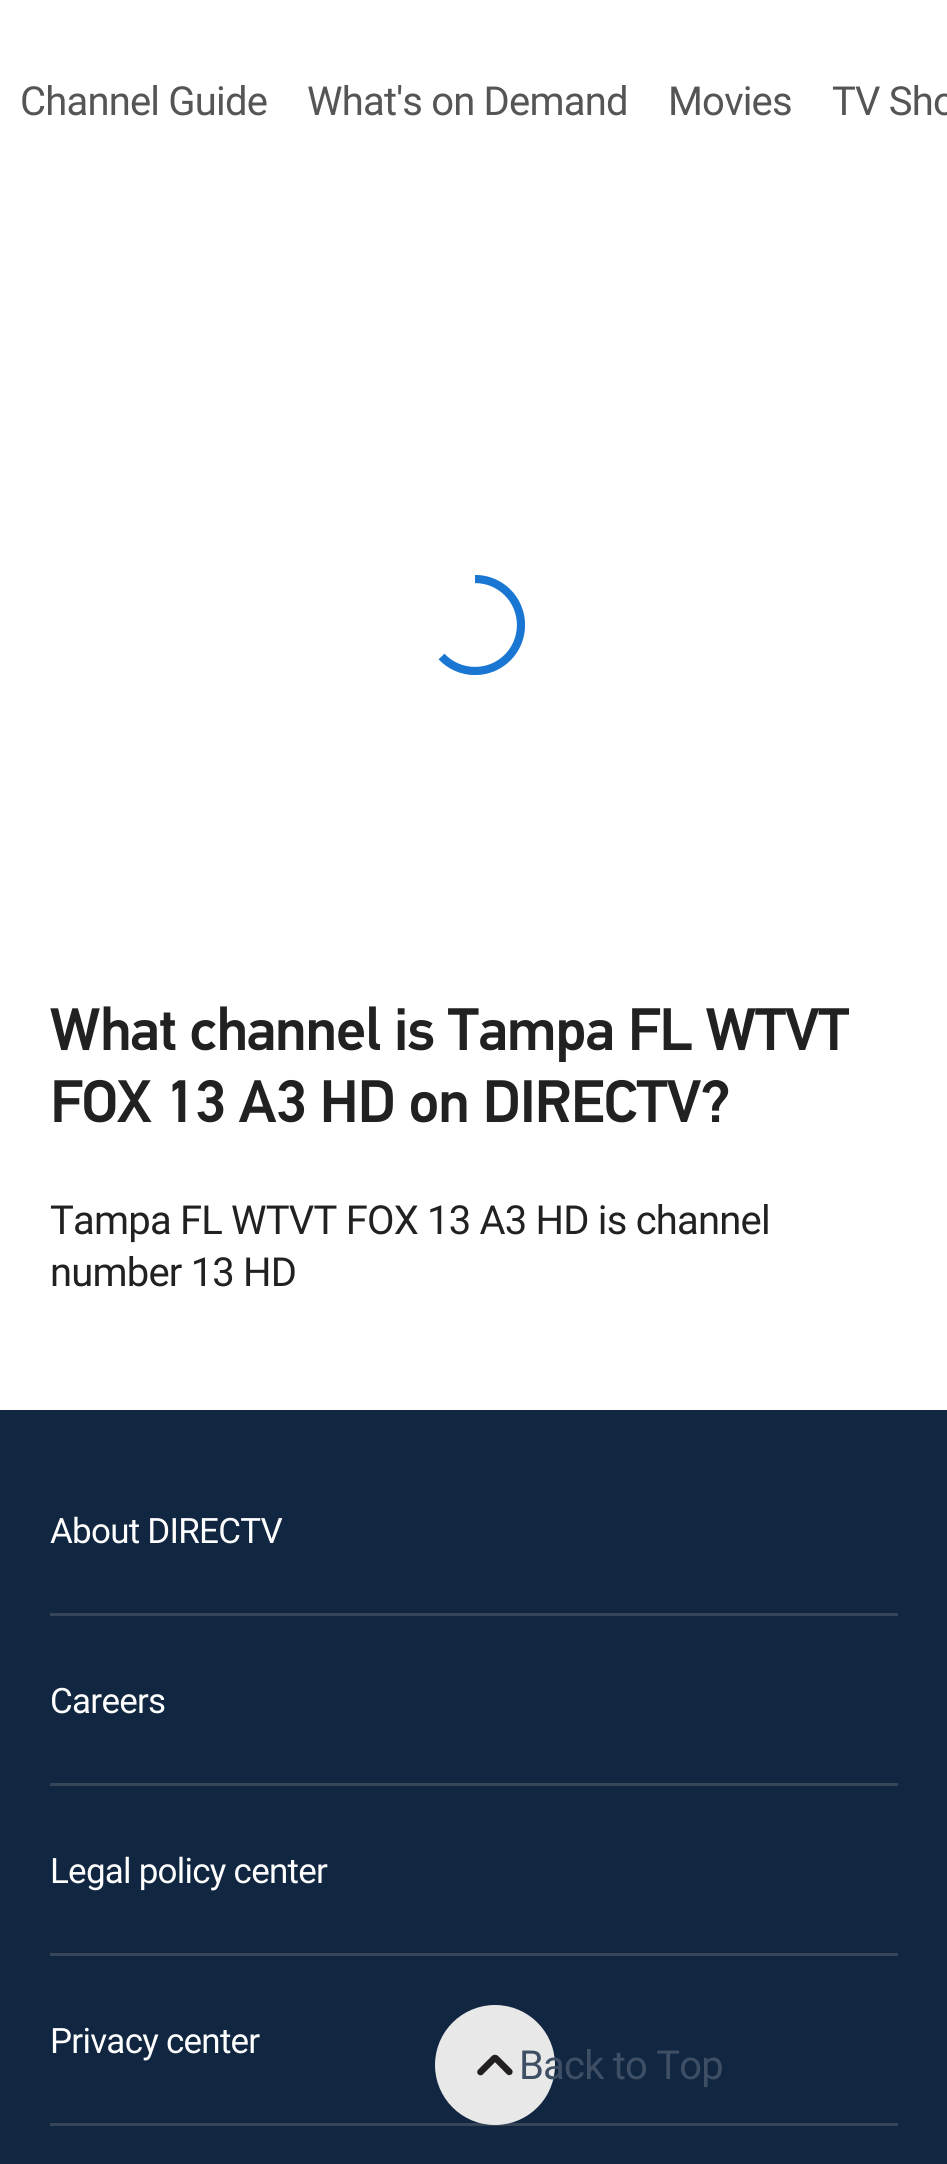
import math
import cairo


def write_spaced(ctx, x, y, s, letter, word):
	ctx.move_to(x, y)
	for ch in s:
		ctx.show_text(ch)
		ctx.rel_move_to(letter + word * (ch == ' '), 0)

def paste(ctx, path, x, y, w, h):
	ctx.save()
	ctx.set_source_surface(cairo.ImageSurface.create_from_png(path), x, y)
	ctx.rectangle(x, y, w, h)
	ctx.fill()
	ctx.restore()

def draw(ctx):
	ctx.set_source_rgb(1, 1, 1)
	ctx.paint()
	ctx.select_font_face('Roboto')
	ctx.set_font_size(40)
	ctx.set_source_rgb(0.333, 0.333, 0.333)
	for x, y, s in [
		(20, 115, 'Channel Guide'),
		(307, 115, 'What\'s on Demand'),
		(668, 115, 'Movies'),
		(832, 115, 'TV Sho'),
	]:
		write_spaced(ctx, x, y, s, -0.8, 0)
	ctx.save()
	ctx.rectangle(425, 575, 100, 100)
	ctx.clip()
	ctx.new_path()
	ctx.move_to(475, 579)
	ctx.curve_to(500.5, 579, 521, 599.5, 521, 625)
	ctx.curve_to(521, 650.5, 500.5, 671, 475, 671)
	ctx.curve_to(462, 671, 450, 665.5, 441.5, 656.5)
	ctx.set_source_rgb(0.098, 0.463, 0.824)
	ctx.set_line_width(8.2)
	ctx.stroke()
	ctx.restore()
	ctx.select_font_face('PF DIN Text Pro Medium')
	ctx.set_font_size(60)
	ctx.set_source_rgb(0.129, 0.129, 0.129)
	write_spaced(ctx, 50, 1050, 'What channel is Tampa FL WTVT', -1.2, 0)
	write_spaced(ctx, 50, 1122, 'FOX 13 A3 HD on DIRECTV?', -1.2, 0)
	ctx.select_font_face('Roboto')
	ctx.set_font_size(40)
	write_spaced(ctx, 50, 1234, 'Tampa FL WTVT FOX 13 A3 HD is channel', -0.8, 0)
	write_spaced(ctx, 50, 1286, 'number 13 HD', -0.8, 0)
	ctx.set_source_rgb(0.063, 0.149, 0.255)
	ctx.rectangle(0, 1410, 947, 754)
	ctx.fill()
	ctx.set_source_rgb(0.212, 0.271, 0.345)
	ctx.rectangle(50, 2123, 848, 3)
	ctx.fill()
	ctx.set_source_rgb(0.91, 0.91, 0.91)
	ctx.arc(495, 2065, 60, 0, 2 * math.pi)
	ctx.fill()
	paste(ctx, 'media/1.png', 477, 2054, 36, 22)
	ctx.set_source_rgb(0.243, 0.31, 0.396)
	write_spaced(ctx, 519, 2079, 'Back to Top', -0.8, 0)
	ctx.set_font_size(35)
	ctx.set_source_rgb(0.996, 0.996, 0.996)
	write_spaced(ctx, 50, 1543, 'About DIRECTV', -0.75, 0)
	ctx.set_source_rgb(0.212, 0.271, 0.345)
	ctx.rectangle(50, 1613, 848, 3)
	ctx.fill()
	ctx.set_source_rgb(0.996, 0.996, 0.996)
	write_spaced(ctx, 50, 1713, 'Careers', -0.75, 0)
	ctx.set_source_rgb(0.212, 0.271, 0.345)
	ctx.rectangle(50, 1783, 848, 3)
	ctx.fill()
	ctx.set_source_rgb(0.996, 0.996, 0.996)
	write_spaced(ctx, 50, 1883, 'Legal policy center', -0.75, 0)
	ctx.set_source_rgb(0.212, 0.271, 0.345)
	ctx.rectangle(50, 1953, 848, 3)
	ctx.fill()
	ctx.set_source_rgb(0.996, 0.996, 0.996)
	write_spaced(ctx, 50, 2053, 'Privacy center', -0.75, 0)


surface = cairo.ImageSurface(cairo.FORMAT_RGB24, 947, 2164)
ctx = cairo.Context(surface)
options = cairo.FontOptions()
options.set_hint_metrics(cairo.HINT_METRICS_OFF)
options.set_hint_style(cairo.HINT_STYLE_NONE)
ctx.set_font_options(options)
ctx.set_miter_limit(4)
draw(ctx)
surface.write_to_png('image.png')
